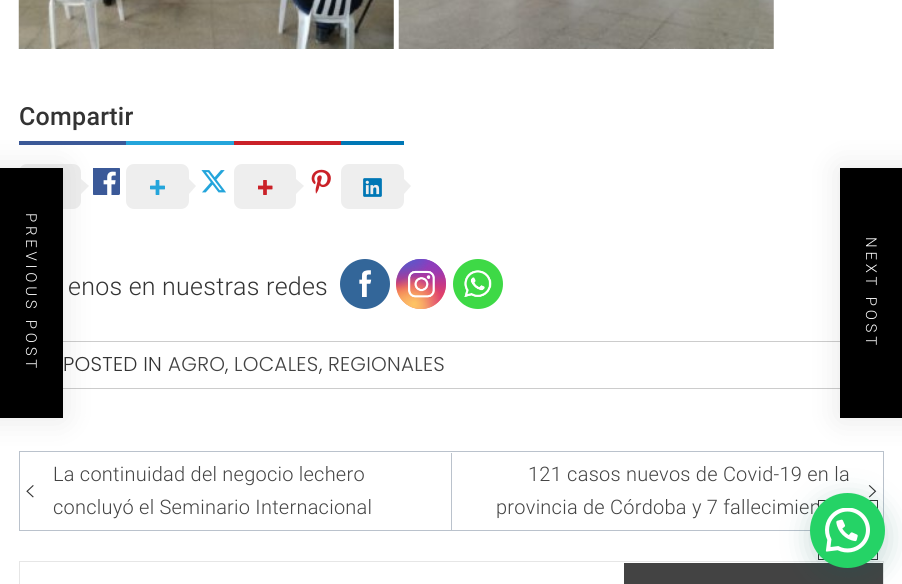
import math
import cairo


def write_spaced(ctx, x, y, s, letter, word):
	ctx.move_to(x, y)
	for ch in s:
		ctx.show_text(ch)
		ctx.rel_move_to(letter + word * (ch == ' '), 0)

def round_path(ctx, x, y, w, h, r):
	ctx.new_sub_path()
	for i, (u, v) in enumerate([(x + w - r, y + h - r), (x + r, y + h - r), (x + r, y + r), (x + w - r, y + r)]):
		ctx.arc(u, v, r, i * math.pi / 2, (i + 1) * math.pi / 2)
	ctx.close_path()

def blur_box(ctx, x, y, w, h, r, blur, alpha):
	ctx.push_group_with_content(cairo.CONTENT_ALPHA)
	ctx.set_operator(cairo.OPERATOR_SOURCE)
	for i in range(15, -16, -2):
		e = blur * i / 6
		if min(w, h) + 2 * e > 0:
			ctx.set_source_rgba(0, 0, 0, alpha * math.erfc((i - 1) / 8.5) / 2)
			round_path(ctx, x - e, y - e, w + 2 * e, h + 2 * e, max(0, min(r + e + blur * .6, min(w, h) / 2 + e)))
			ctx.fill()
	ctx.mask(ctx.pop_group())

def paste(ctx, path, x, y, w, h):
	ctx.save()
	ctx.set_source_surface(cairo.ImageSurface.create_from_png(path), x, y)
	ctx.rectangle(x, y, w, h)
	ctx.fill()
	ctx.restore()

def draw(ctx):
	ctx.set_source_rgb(1, 1, 1)
	ctx.paint()
	paste(ctx, 'media/1.png', 18, 0, 376, 49)
	paste(ctx, 'media/2.png', 398, 0, 376, 49)
	ctx.select_font_face('Roboto Medium')
	ctx.set_font_size(25)
	ctx.set_source_rgb(0.2, 0.2, 0.2)
	write_spaced(ctx, 19, 125, 'Compartir', 0.25, 0)
	ctx.set_source_rgb(0.231, 0.349, 0.596)
	ctx.rectangle(19, 141, 107, 4)
	ctx.fill()
	ctx.set_source_rgb(0.933, 0.933, 0.933)
	round_path(ctx, 19, 164, 62, 45, 8)
	ctx.fill()
	ctx.new_path()
	ctx.move_to(81, 194)
	ctx.line_to(81, 179)
	ctx.line_to(89, 186)
	ctx.close_path()
	ctx.fill()
	paste(ctx, 'media/3.png', 93, 168, 27, 27)
	ctx.set_source_rgb(0.141, 0.647, 0.859)
	ctx.rectangle(126, 141, 108, 4)
	ctx.fill()
	ctx.set_source_rgb(0.933, 0.933, 0.933)
	round_path(ctx, 126, 164, 63, 45, 8)
	ctx.fill()
	paste(ctx, 'media/4.png', 150, 180, 15, 15)
	ctx.new_path()
	ctx.move_to(189, 194)
	ctx.line_to(189, 179)
	ctx.line_to(196, 186)
	ctx.close_path()
	ctx.fill()
	paste(ctx, 'media/5.png', 201, 170, 25, 23)
	ctx.set_source_rgb(0.792, 0.129, 0.157)
	ctx.rectangle(234, 141, 107, 4)
	ctx.fill()
	ctx.set_source_rgb(0.933, 0.933, 0.933)
	round_path(ctx, 234, 164, 62, 45, 8)
	ctx.fill()
	paste(ctx, 'media/6.png', 258, 180, 15, 15)
	ctx.new_path()
	ctx.move_to(296, 194)
	ctx.line_to(296, 179)
	ctx.line_to(304, 186)
	ctx.close_path()
	ctx.fill()
	paste(ctx, 'media/7.png', 311, 169, 20, 25)
	ctx.set_source_rgb(0, 0.467, 0.71)
	ctx.rectangle(341, 141, 63, 4)
	ctx.fill()
	ctx.set_source_rgb(0.933, 0.933, 0.933)
	round_path(ctx, 341, 164, 63, 45, 8)
	ctx.fill()
	paste(ctx, 'media/8.png', 363, 178, 19, 19)
	ctx.new_path()
	ctx.move_to(404, 194)
	ctx.line_to(404, 179)
	ctx.line_to(411, 186)
	ctx.close_path()
	ctx.fill()
	ctx.select_font_face('Roboto Light')
	ctx.set_source_rgb(0.2, 0.2, 0.2)
	write_spaced(ctx, 68, 295, 'enos en nuestras redes', 0.25, 0)
	ctx.set_source_rgb(0.2, 0.4, 0.6)
	ctx.new_path()
	ctx.arc(365, 284, 25, 0, 2 * math.pi)
	ctx.fill()
	paste(ctx, 'media/9.png', 359, 270, 13, 27)
	gradient = cairo.LinearGradient(421, 259, 421, 309)
	gradient.add_color_stop_rgba(0, 0.396, 0.349, 0.792, 1)
	gradient.add_color_stop_rgba(0.3, 0.737, 0.192, 0.561, 1)
	gradient.add_color_stop_rgba(0.5, 0.89, 0.247, 0.373, 1)
	gradient.add_color_stop_rgba(0.7, 0.969, 0.463, 0.22, 1)
	gradient.add_color_stop_rgba(1, 0.996, 0.776, 0.427, 1)
	ctx.set_source(gradient)
	ctx.arc(421, 284, 25, 0, 2 * math.pi)
	ctx.fill()
	gradient = cairo.RadialGradient(446, 309, 0, 446, 309, 71)
	gradient.add_color_stop_rgba(0, 0.851, 0.192, 0.478, 1)
	gradient.add_color_stop_rgba(1, 0.851, 0.192, 0.478, 0)
	ctx.set_source(gradient)
	ctx.arc(421, 284, 25, 0, 2 * math.pi)
	ctx.fill()
	gradient = cairo.RadialGradient(0, 0, 0, 0, 0, 1)
	gradient.set_matrix(cairo.Matrix(1 / 42, 0, 0, 1 / 85, -1 * 426 / 42, -1 * 249 / 85))
	gradient.add_color_stop_rgba(0, 0.537, 0.239, 0.761, 1)
	gradient.add_color_stop_rgba(0.5, 0.537, 0.239, 0.761, 0)
	ctx.set_source(gradient)
	ctx.arc(421, 284, 25, 0, 2 * math.pi)
	ctx.fill()
	gradient = cairo.RadialGradient(446, 259, 0, 446, 259, 71)
	gradient.add_color_stop_rgba(0, 0.537, 0.239, 0.761, 1)
	gradient.add_color_stop_rgba(0.5, 0.537, 0.239, 0.761, 0)
	ctx.set_source(gradient)
	ctx.arc(421, 284, 25, 0, 2 * math.pi)
	ctx.fill()
	gradient = cairo.RadialGradient(0, 0, 0, 0, 0, 1)
	gradient.set_matrix(cairo.Matrix(1 / 57, 0, 0, 1 / 106, -1 * 406 / 57, -1 * 234 / 106))
	gradient.add_color_stop_rgba(0, 0.322, 0.345, 0.812, 1)
	gradient.add_color_stop_rgba(0.5, 0.322, 0.345, 0.812, 0)
	ctx.set_source(gradient)
	ctx.arc(421, 284, 25, 0, 2 * math.pi)
	ctx.fill()
	gradient = cairo.RadialGradient(0, 0, 0, 0, 0, 1)
	gradient.set_matrix(cairo.Matrix(1 / 71, 0, 0, 1 / 88, -1 * 396 / 71, -1 * 246 / 88))
	gradient.add_color_stop_rgba(0, 0.322, 0.345, 0.812, 1)
	gradient.add_color_stop_rgba(0.5, 0.322, 0.345, 0.812, 0)
	ctx.set_source(gradient)
	ctx.arc(421, 284, 25, 0, 2 * math.pi)
	ctx.fill()
	gradient = cairo.RadialGradient(396, 329, 0, 396, 329, 86)
	gradient.add_color_stop_rgba(0, 0.996, 0.773, 0.392, 1)
	gradient.add_color_stop_rgba(0.5, 0.996, 0.773, 0.392, 0)
	ctx.set_source(gradient)
	ctx.arc(421, 284, 25, 0, 2 * math.pi)
	ctx.fill()
	gradient = cairo.RadialGradient(414, 304, 0, 414, 304, 56)
	gradient.add_color_stop_rgba(0, 0.996, 0.773, 0.392, 1)
	gradient.add_color_stop_rgba(0.5, 0.996, 0.773, 0.392, 0)
	ctx.set_source(gradient)
	ctx.arc(421, 284, 25, 0, 2 * math.pi)
	ctx.fill()
	paste(ctx, 'media/10.png', 408, 270, 27, 28)
	ctx.set_source_rgb(0.243, 0.851, 0.275)
	ctx.arc(478, 284, 25, 0, 2 * math.pi)
	ctx.fill()
	paste(ctx, 'media/11.png', 464, 270, 28, 27)
	ctx.rectangle(19.5, 341.5, 864, 47)
	ctx.set_source_rgb(0.8, 0.8, 0.8)
	ctx.set_line_width(1)
	ctx.stroke()
	ctx.select_font_face('Poppins Light')
	ctx.set_font_size(20)
	ctx.set_source_rgb(0.2, 0.2, 0.2)
	write_spaced(ctx, 63, 371, 'POSTED IN', 0.25, 0)
	ctx.set_source_rgb(0.263, 0.263, 0.263)
	write_spaced(ctx, 168, 371, 'AGRO', 0.25, 0)
	ctx.set_source_rgb(0.2, 0.2, 0.2)
	write_spaced(ctx, 225, 371, ',', 0.25, 0)
	ctx.set_source_rgb(0.263, 0.263, 0.263)
	write_spaced(ctx, 234, 371, 'LOCALES', 0.25, 0)
	ctx.set_source_rgb(0.2, 0.2, 0.2)
	write_spaced(ctx, 319, 371, ',', 0.25, 0)
	ctx.set_source_rgb(0.263, 0.263, 0.263)
	write_spaced(ctx, 328, 371, 'REGIONALES', 0.25, 0)
	ctx.rectangle(19.5, 451.5, 864, 79)
	ctx.set_source_rgb(0.729, 0.761, 0.8)
	ctx.stroke()
	ctx.set_source_rgb(0, 0, 0)
	blur_box(ctx, -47, 168, 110, 250, 0, 15.5, 0.1)
	ctx.set_source_rgb(0, 0, 0)
	ctx.rectangle(0, 168, 63, 250)
	ctx.fill()
	ctx.select_font_face('Roboto Light')
	ctx.set_font_size(15)
	ctx.set_source_rgb(1, 1, 1)
	ctx.save()
	ctx.translate(26, 213)
	ctx.rotate(90 * math.pi / 180)
	write_spaced(ctx, 0, 0, 'PREVIOUS POST', 3.75, 0)
	ctx.restore()
	ctx.set_source_rgb(0, 0, 0)
	blur_box(ctx, 840, 168, 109, 250, 0, 15.5, 0.1)
	ctx.set_source_rgb(0, 0, 0)
	ctx.rectangle(840, 168, 62, 250)
	ctx.fill()
	ctx.set_source_rgb(1, 1, 1)
	ctx.save()
	ctx.translate(866, 237)
	ctx.rotate(90 * math.pi / 180)
	write_spaced(ctx, 0, 0, 'NEXT POST', 3.75, 0)
	ctx.restore()
	ctx.set_source_rgb(0.729, 0.761, 0.8)
	ctx.rectangle(451, 453, 1, 77)
	ctx.fill()
	paste(ctx, 'media/12.png', 26, 485, 8, 13)
	ctx.set_font_size(20)
	ctx.set_source_rgb(0.263, 0.263, 0.263)
	for x, y, s in [
		(53, 481, 'La continuidad del negocio lechero'),
		(53, 514, 'concluyó el Seminario Internacional'),
		(528, 481, '121 casos nuevos de Covid-19 en la'),
		(496, 514, 'provincia de Córdoba y 7 fallecimien'),
	]:
		write_spaced(ctx, x, y, s, 0.25, 0)
	paste(ctx, 'media/13.png', 868, 485, 9, 13)
	ctx.set_source_rgb(0.902, 0.902, 0.902)
	ctx.rectangle(19, 561, 865, 1)
	ctx.rectangle(19, 561, 1, 23)
	ctx.fill()
	ctx.set_source_rgb(0.263, 0.263, 0.263)
	ctx.rectangle(624, 563, 259, 21)
	ctx.fill()
	ctx.set_source_rgb(0.902, 0.902, 0.902)
	ctx.rectangle(883, 561, 1, 23)
	ctx.fill()
	ctx.set_source_rgb(1, 1, 1)
	ctx.rectangle(819, 505, 58, 26)
	ctx.fill()
	ctx.rectangle(818.5, 500.5, 59, 59)
	ctx.set_source_rgb(0.2, 0.2, 0.2)
	ctx.stroke()
	ctx.set_source_rgb(0.027, 0.369, 0.329)
	blur_box(ctx, 811, 500, 75, 75, 37.5, 15, 0.24)
	ctx.set_source_rgb(0.145, 0.827, 0.4)
	ctx.arc(847.5, 530.5, 37.5, 0, 2 * math.pi)
	ctx.fill()
	paste(ctx, 'media/14.png', 825, 508, 45, 45)


surface = cairo.ImageSurface(cairo.FORMAT_RGB24, 902, 584)
ctx = cairo.Context(surface)
options = cairo.FontOptions()
options.set_hint_metrics(cairo.HINT_METRICS_OFF)
options.set_hint_style(cairo.HINT_STYLE_NONE)
ctx.set_font_options(options)
ctx.set_miter_limit(4)
draw(ctx)
surface.write_to_png('image.png')
